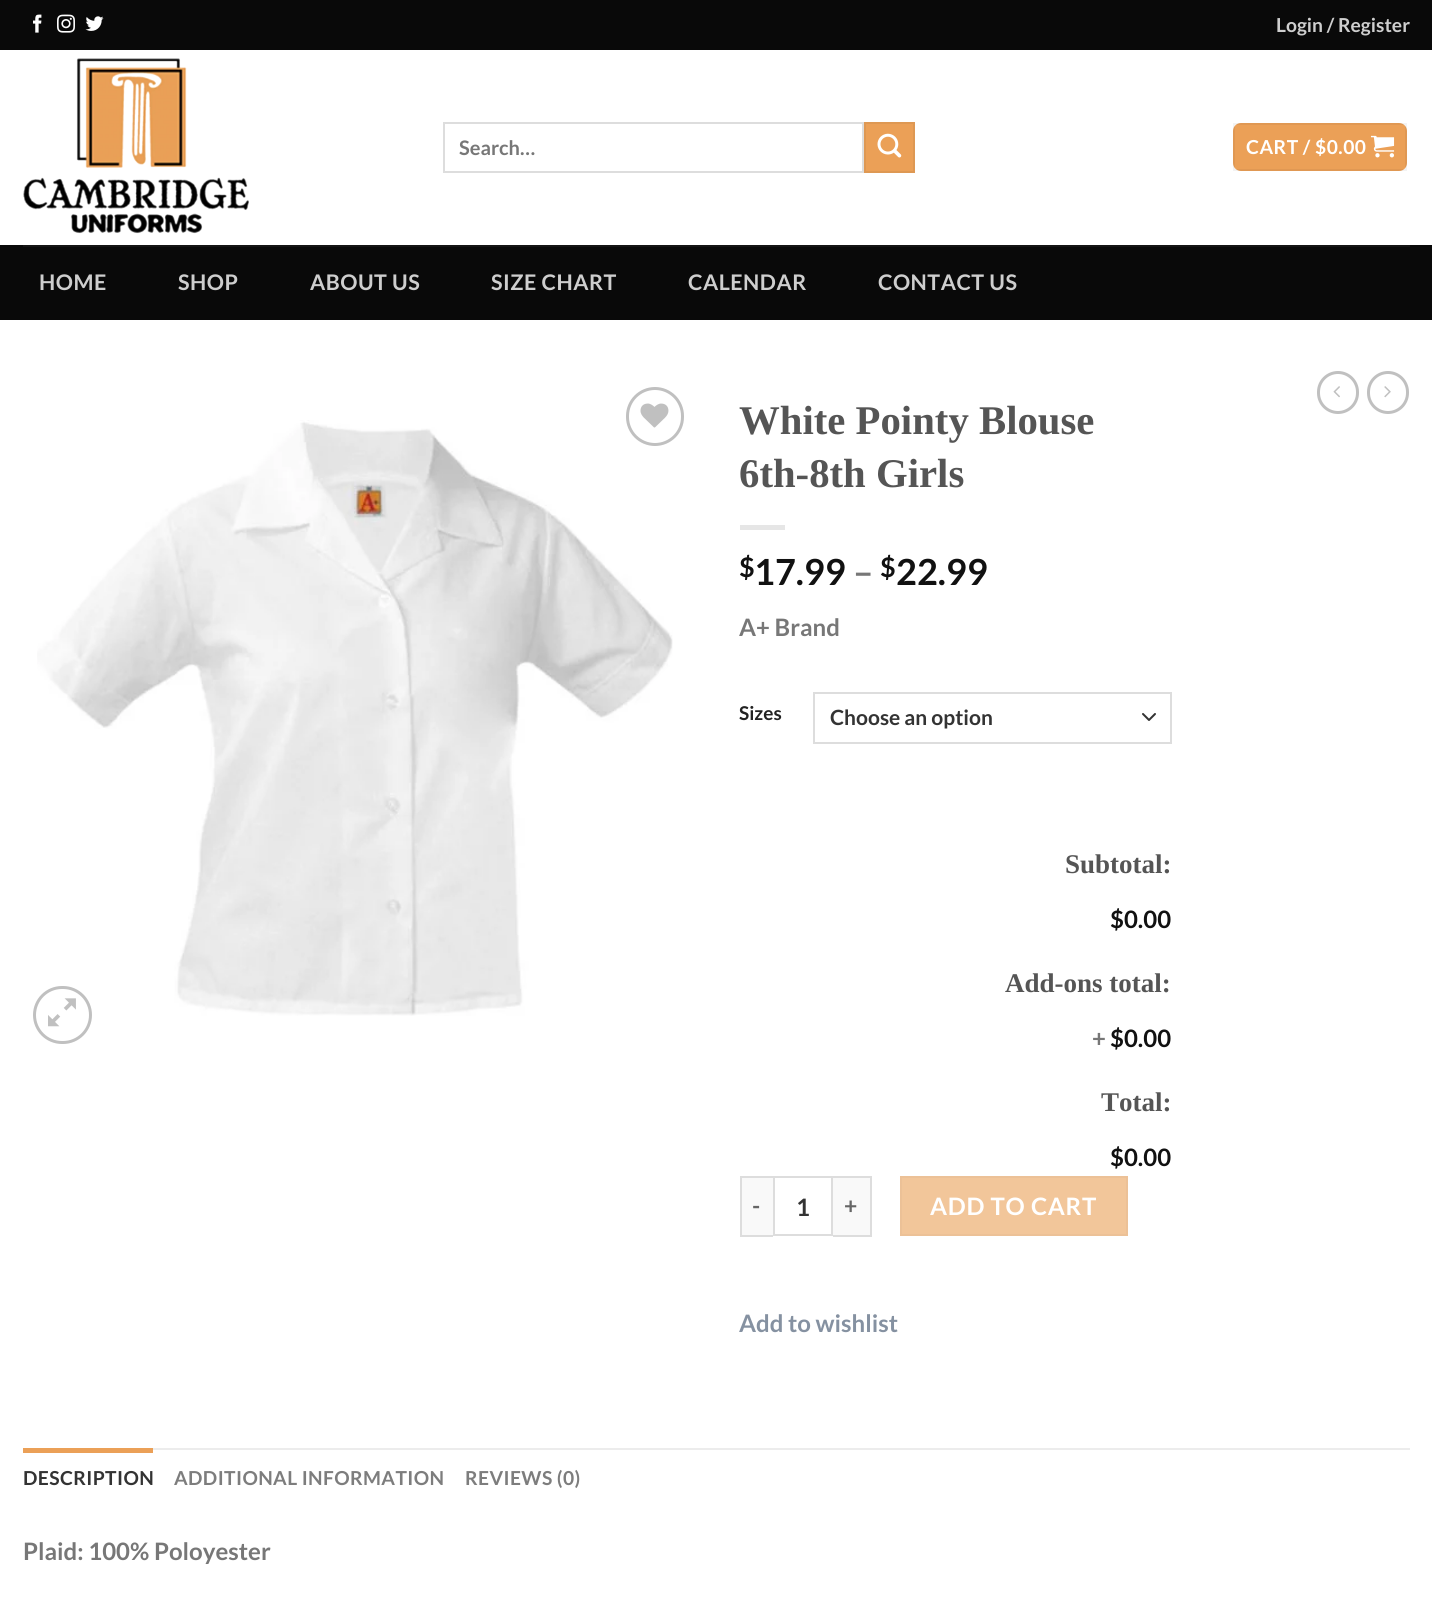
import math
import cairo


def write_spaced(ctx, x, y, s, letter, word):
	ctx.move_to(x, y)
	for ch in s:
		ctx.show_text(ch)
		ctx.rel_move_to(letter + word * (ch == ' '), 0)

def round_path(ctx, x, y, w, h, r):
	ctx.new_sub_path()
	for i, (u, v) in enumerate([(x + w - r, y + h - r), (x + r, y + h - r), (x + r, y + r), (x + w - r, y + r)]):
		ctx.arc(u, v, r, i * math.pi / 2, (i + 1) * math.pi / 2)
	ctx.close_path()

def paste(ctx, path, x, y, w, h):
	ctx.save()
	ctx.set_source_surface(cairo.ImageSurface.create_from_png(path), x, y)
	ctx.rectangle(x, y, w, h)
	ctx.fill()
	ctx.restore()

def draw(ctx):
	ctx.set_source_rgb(1, 1, 1)
	ctx.paint()
	ctx.set_source_rgb(0.039, 0.039, 0.039)
	ctx.rectangle(0, 0, 1432, 50)
	ctx.fill()
	paste(ctx, 'media/1.png', 33, 14, 9, 19)
	paste(ctx, 'media/2.png', 57, 14, 18, 19)
	paste(ctx, 'media/3.png', 85, 16, 19, 15)
	ctx.select_font_face('Lato', cairo.FONT_SLANT_NORMAL, cairo.FONT_WEIGHT_BOLD)
	ctx.set_font_size(19.25)
	ctx.set_source_rgb(0.808, 0.808, 0.808)
	ctx.move_to(1276, 32)
	ctx.show_text('Login / Register')
	paste(ctx, 'media/4.png', 23, 58, 226, 176)
	ctx.rectangle(444, 123, 419, 49)
	ctx.set_source_rgb(0.867, 0.867, 0.867)
	ctx.stroke()
	ctx.set_font_size(20)
	ctx.set_source_rgb(0.467, 0.467, 0.467)
	ctx.move_to(459, 155)
	ctx.show_text('Search…')
	ctx.set_source_rgb(0.918, 0.627, 0.341)
	ctx.rectangle(865, 123, 49, 49)
	ctx.fill_preserve()
	ctx.set_source_rgb(0.871, 0.596, 0.325)
	ctx.stroke()
	paste(ctx, 'media/5.png', 877, 133, 25, 25)
	ctx.set_source_rgb(0.918, 0.627, 0.341)
	round_path(ctx, 1233, 123, 174, 48, 8)
	ctx.fill()
	ctx.rectangle(1234, 124, 172, 46)
	ctx.set_source_rgba(0, 0, 0, 0.05)
	ctx.stroke()
	ctx.set_font_size(19.25)
	ctx.set_source_rgb(1, 1, 1)
	write_spaced(ctx, 1246, 154, 'CART / $0.00', 0.5, 0)
	paste(ctx, 'media/6.png', 1371, 135, 24, 23)
	ctx.set_source_rgb(0.039, 0.039, 0.039)
	ctx.rectangle(0, 245, 1432, 75)
	ctx.fill()
	ctx.set_source_rgb(0.082, 0.082, 0.082)
	ctx.rectangle(23, 245, 1387, 2)
	ctx.fill()
	ctx.set_font_size(21.5)
	ctx.set_source_rgb(0.808, 0.808, 0.808)
	for x, y, s in [
		(39, 290, 'HOME'),
		(178, 290, 'SHOP'),
		(310, 290, 'ABOUT US'),
		(491, 290, 'SIZE CHART'),
		(688, 290, 'CALENDAR'),
		(878, 290, 'CONTACT US'),
	]:
		write_spaced(ctx, x, y, s, 0.5, 0)
	paste(ctx, 'media/8.png', 37, 420, 636, 596)
	round_path(ctx, 627.5, 388.5, 55, 56, 27.5)
	ctx.set_source_rgb(0.753, 0.753, 0.753)
	ctx.set_line_width(3)
	ctx.stroke()
	paste(ctx, 'media/7.png', 640, 403, 29, 25)
	round_path(ctx, 34.5, 987.5, 56, 55, 27.5)
	ctx.stroke()
	paste(ctx, 'media/9.png', 48, 998, 28, 29)
	ctx.select_font_face('Liberation Serif', cairo.FONT_SLANT_NORMAL, cairo.FONT_WEIGHT_BOLD)
	ctx.set_font_size(40.75)
	ctx.set_source_rgb(0.333, 0.333, 0.333)
	ctx.move_to(739, 434)
	ctx.show_text('White Pointy Blouse')
	ctx.move_to(739, 487)
	ctx.show_text('6th-8th Girls')
	ctx.set_source_rgb(0.902, 0.902, 0.902)
	ctx.rectangle(740, 525, 45, 5)
	ctx.fill()
	ctx.select_font_face('Lato', cairo.FONT_SLANT_NORMAL, cairo.FONT_WEIGHT_BOLD)
	ctx.set_font_size(27)
	ctx.set_source_rgb(0.067, 0.067, 0.067)
	ctx.move_to(739, 577)
	ctx.show_text('$')
	ctx.set_font_size(36)
	ctx.move_to(754, 585)
	ctx.show_text('17.99')
	ctx.set_source_rgb(0.467, 0.467, 0.467)
	ctx.move_to(853, 585)
	ctx.show_text('–')
	ctx.set_font_size(27)
	ctx.set_source_rgb(0.067, 0.067, 0.067)
	ctx.move_to(880, 577)
	ctx.show_text('$')
	ctx.set_font_size(36)
	ctx.move_to(896, 585)
	ctx.show_text('22.99')
	ctx.set_font_size(24)
	ctx.set_source_rgb(0.467, 0.467, 0.467)
	ctx.move_to(739, 636)
	ctx.show_text('A+ Brand')
	ctx.set_font_size(19)
	ctx.set_source_rgb(0.133, 0.133, 0.133)
	ctx.move_to(739, 720)
	ctx.show_text('Sizes')
	ctx.new_path()
	ctx.move_to(1143, 714)
	ctx.line_to(1149, 720)
	ctx.line_to(1155, 714)
	ctx.set_source_rgb(0.2, 0.2, 0.2)
	ctx.set_line_width(2)
	ctx.set_line_cap(cairo.LINE_CAP_ROUND)
	ctx.set_line_join(cairo.LINE_JOIN_ROUND)
	ctx.stroke()
	ctx.rectangle(814, 693, 357, 50)
	ctx.set_source_rgb(0.867, 0.867, 0.867)
	ctx.set_line_cap(cairo.LINE_CAP_BUTT)
	ctx.set_line_join(cairo.LINE_JOIN_MITER)
	ctx.stroke()
	ctx.set_font_size(21)
	ctx.set_source_rgb(0.2, 0.2, 0.2)
	ctx.move_to(830, 725)
	ctx.show_text('Choose an option')
	ctx.select_font_face('Liberation Serif', cairo.FONT_SLANT_NORMAL, cairo.FONT_WEIGHT_BOLD)
	ctx.set_font_size(27)
	ctx.set_source_rgb(0.333, 0.333, 0.333)
	ctx.move_to(1065, 873)
	ctx.show_text('Subtotal:')
	ctx.select_font_face('Lato', cairo.FONT_SLANT_NORMAL, cairo.FONT_WEIGHT_BOLD)
	ctx.set_font_size(24)
	ctx.set_source_rgb(0.067, 0.067, 0.067)
	ctx.move_to(1110, 928)
	ctx.show_text('$0.00')
	ctx.select_font_face('Liberation Serif', cairo.FONT_SLANT_NORMAL, cairo.FONT_WEIGHT_BOLD)
	ctx.set_font_size(27)
	ctx.set_source_rgb(0.333, 0.333, 0.333)
	ctx.move_to(1005, 992)
	ctx.show_text('Add-ons total:')
	ctx.select_font_face('Lato', cairo.FONT_SLANT_NORMAL, cairo.FONT_WEIGHT_BOLD)
	ctx.set_font_size(24)
	ctx.set_source_rgb(0.467, 0.467, 0.467)
	ctx.move_to(1092, 1047)
	ctx.show_text('+')
	ctx.set_source_rgb(0.067, 0.067, 0.067)
	ctx.move_to(1110, 1047)
	ctx.show_text('$0.00')
	ctx.select_font_face('Liberation Serif', cairo.FONT_SLANT_NORMAL, cairo.FONT_WEIGHT_BOLD)
	ctx.set_font_size(27)
	ctx.set_source_rgb(0.333, 0.333, 0.333)
	ctx.move_to(1101, 1111)
	ctx.show_text('Total:')
	ctx.select_font_face('Lato', cairo.FONT_SLANT_NORMAL, cairo.FONT_WEIGHT_BOLD)
	ctx.set_font_size(24)
	ctx.set_source_rgb(0.067, 0.067, 0.067)
	ctx.move_to(1110, 1166)
	ctx.show_text('$0.00')
	ctx.set_source_rgb(0.976, 0.976, 0.976)
	ctx.rectangle(742, 1178, 31, 57)
	ctx.fill()
	ctx.set_source_rgb(0.867, 0.867, 0.867)
	ctx.rectangle(740, 1176, 33, 2)
	ctx.rectangle(740, 1235, 33, 2)
	ctx.rectangle(740, 1176, 2, 60)
	ctx.fill()
	ctx.set_font_size(23)
	ctx.set_source_rgb(0.4, 0.4, 0.4)
	write_spaced(ctx, 752, 1214, '-', 1, 0)
	ctx.rectangle(774, 1177, 58, 58)
	ctx.set_source_rgb(0.867, 0.867, 0.867)
	ctx.stroke()
	ctx.set_font_size(24)
	ctx.set_source_rgb(0.2, 0.2, 0.2)
	ctx.move_to(796, 1216)
	ctx.show_text('1')
	ctx.set_source_rgb(0.976, 0.976, 0.976)
	ctx.rectangle(833, 1178, 37, 57)
	ctx.fill()
	ctx.set_source_rgb(0.867, 0.867, 0.867)
	ctx.rectangle(833, 1176, 39, 2)
	ctx.rectangle(870, 1176, 2, 60)
	ctx.rectangle(833, 1235, 39, 2)
	ctx.fill()
	ctx.set_font_size(23)
	ctx.set_source_rgb(0.4, 0.4, 0.4)
	write_spaced(ctx, 844, 1214, '+', 1, 0)
	ctx.set_source_rgb(0.949, 0.776, 0.604)
	ctx.rectangle(901, 1177, 226, 58)
	ctx.fill_preserve()
	ctx.set_source_rgb(0.922, 0.757, 0.592)
	ctx.stroke()
	ctx.set_font_size(24)
	ctx.set_source_rgb(1, 1, 1)
	write_spaced(ctx, 930, 1215, 'ADD TO CART', 0.75, 0)
	ctx.set_source_rgb(0.522, 0.569, 0.631)
	ctx.move_to(739, 1332)
	ctx.show_text('Add to wishlist')
	round_path(ctx, 1318.5, 372.5, 39, 40, 19.5)
	ctx.set_source_rgb(0.753, 0.753, 0.753)
	ctx.set_line_width(3)
	ctx.stroke()
	paste(ctx, 'media/10.png', 1333, 386, 7, 12)
	round_path(ctx, 1368.5, 372.5, 39, 40, 19.5)
	ctx.stroke()
	paste(ctx, 'media/11.png', 1384, 386, 7, 12)
	ctx.set_source_rgb(0.925, 0.925, 0.925)
	ctx.rectangle(153, 1448, 1257, 2)
	ctx.fill()
	ctx.set_source_rgb(0.918, 0.627, 0.341)
	ctx.rectangle(23, 1448, 130, 5)
	ctx.fill()
	ctx.set_font_size(19.25)
	ctx.set_source_rgb(0.2, 0.2, 0.2)
	write_spaced(ctx, 23, 1485, 'DESCRIPTION', 0.4, 0)
	ctx.set_source_rgb(0.49, 0.49, 0.49)
	write_spaced(ctx, 174, 1485, 'ADDITIONAL INFORMATION', 0.4, 0)
	write_spaced(ctx, 465, 1485, 'REVIEWS (0)', 0.4, 0)
	ctx.set_font_size(24)
	ctx.set_source_rgb(0.467, 0.467, 0.467)
	ctx.move_to(23, 1560)
	ctx.show_text('Plaid: 100% Poloyester')


surface = cairo.ImageSurface(cairo.FORMAT_RGB24, 1432, 1611)
ctx = cairo.Context(surface)
options = cairo.FontOptions()
options.set_hint_metrics(cairo.HINT_METRICS_OFF)
options.set_hint_style(cairo.HINT_STYLE_NONE)
ctx.set_font_options(options)
ctx.set_miter_limit(4)
draw(ctx)
surface.write_to_png('image.png')
